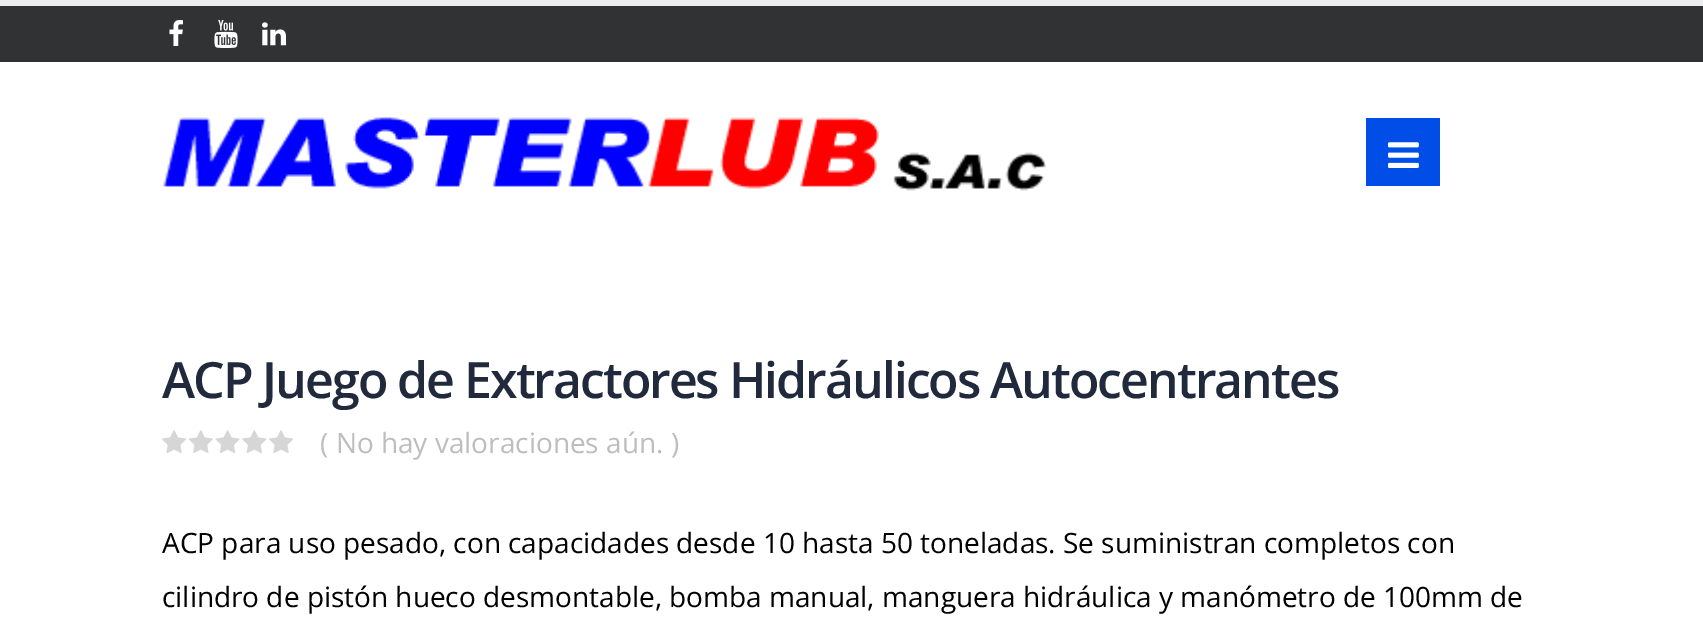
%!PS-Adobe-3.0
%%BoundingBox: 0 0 1703 626
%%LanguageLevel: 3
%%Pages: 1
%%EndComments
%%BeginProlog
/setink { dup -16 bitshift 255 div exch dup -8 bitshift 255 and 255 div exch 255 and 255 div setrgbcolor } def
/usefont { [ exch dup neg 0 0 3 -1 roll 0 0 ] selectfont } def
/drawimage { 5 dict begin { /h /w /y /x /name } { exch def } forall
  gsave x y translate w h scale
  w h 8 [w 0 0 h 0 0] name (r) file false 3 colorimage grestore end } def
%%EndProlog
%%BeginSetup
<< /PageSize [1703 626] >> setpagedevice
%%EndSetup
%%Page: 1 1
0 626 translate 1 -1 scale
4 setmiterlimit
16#FFFFFF setink
0 0 1703 626 rectfill
16#EDEDED setink
0 0 1703 6 rectfill
16#313234 setink
0 6 1703 56 rectfill
(img1.raw) 169 20 14 26 drawimage
(img2.raw) 214 20 24 28 drawimage
(img3.raw) 262 22 24 24 drawimage
(img4.raw) 163 117 883 74 drawimage
16#004DE8 setink
1366 118 74 68 rectfill
(img5.raw) 1388 142 31 26 drawimage
/OpenSans-SemiBold 50 usefont
16#21293C setink
162 398 moveto -2 0 (ACP Juego de Extractores Hidráulicos Autocentrantes) ashow
(img6.raw) 162 430 131 23 drawimage
/OpenSans-Regular 28 usefont
16#BDBDBD setink
320 453 moveto (\( No hay valoraciones aún. \)) show
16#000000 setink
162 553 moveto (ACP para uso pesado, con capacidades desde 10 hasta 50 toneladas. Se suministran completos con) show
162 607 moveto (cilindro de pistón hueco desmontable, bomba manual, manguera hidráulica y manómetro de 100mm de) show
showpage
%%EOF
